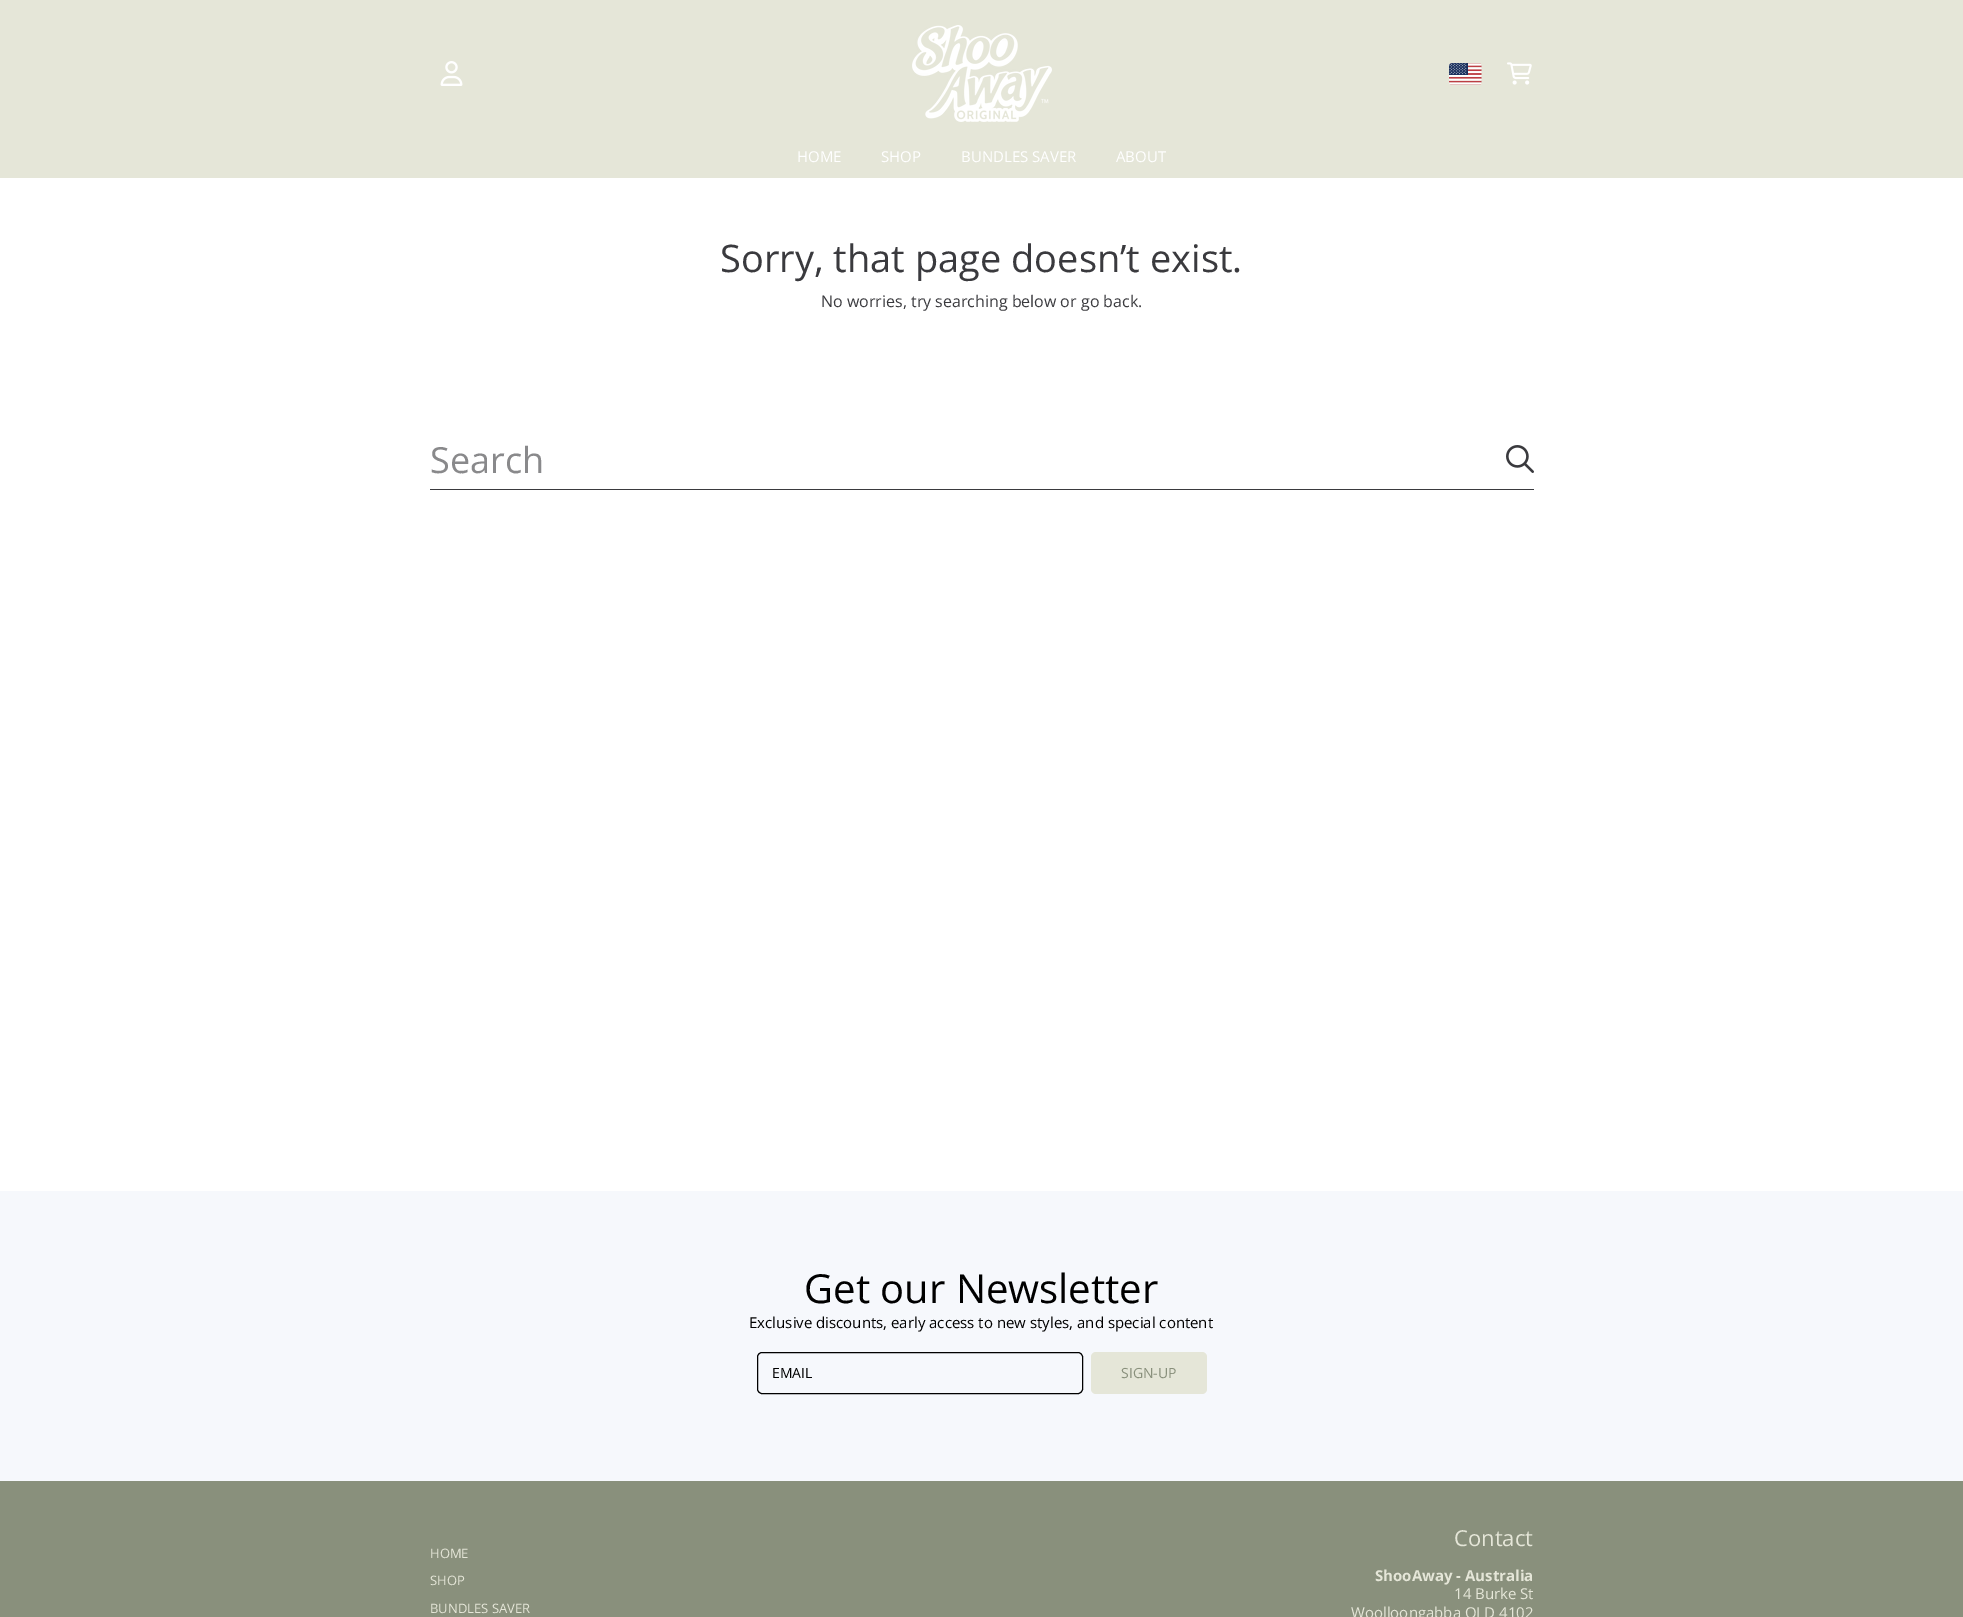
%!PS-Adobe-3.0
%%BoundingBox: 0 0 1963 1617
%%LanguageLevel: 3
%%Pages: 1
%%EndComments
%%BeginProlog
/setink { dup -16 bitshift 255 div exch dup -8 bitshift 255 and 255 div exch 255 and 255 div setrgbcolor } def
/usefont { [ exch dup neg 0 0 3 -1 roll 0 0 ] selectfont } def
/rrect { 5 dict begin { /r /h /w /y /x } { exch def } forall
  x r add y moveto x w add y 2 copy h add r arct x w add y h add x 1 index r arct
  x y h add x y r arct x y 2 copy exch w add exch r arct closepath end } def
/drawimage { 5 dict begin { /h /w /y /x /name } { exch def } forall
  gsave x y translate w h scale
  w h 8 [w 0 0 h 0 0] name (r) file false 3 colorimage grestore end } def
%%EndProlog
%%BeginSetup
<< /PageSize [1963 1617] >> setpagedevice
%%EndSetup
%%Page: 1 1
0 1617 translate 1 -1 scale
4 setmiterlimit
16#FFFFFF setink
0 0 1963 1617 rectfill
16#E5E6D8 setink
0 0 1963 178 rectfill
(img1.raw) 440 61 23 25 drawimage
(img2.raw) 912 25 140 97 drawimage
(img3.raw) 1449 63 33 22 drawimage
(img4.raw) 1507 62 25 23 drawimage
/OpenSans-Regular 15 usefont
16#FFFFFF setink
[
    [(HOME) 797 162]
    [(SHOP) 881 162]
    [(BUNDLES SAVER) 961 162]
    [(ABOUT) 1116 162]
] { aload pop moveto show } forall
/OpenSans-Regular 38 usefont
16#3A3A3E setink
720 272 moveto (Sorry, that page doesn’t exist.) show
/OpenSans-Regular 16 usefont
821 307 moveto (No worries, try searching below or go back.) show
430 489 1104 1 rectfill
/OpenSans-Regular 36 usefont
16#89898B setink
430 473 moveto (Search) show
(img5.raw) 1506 445 28 28 drawimage
16#F6F8FC setink
0 1191 1963 290 rectfill
/OpenSans-Regular 40 usefont
16#000000 setink
804 1303 moveto (Get our Newsletter) show
/OpenSans-Regular 15 usefont
749 1328 moveto (Exclusive discounts, early access to new styles, and special content) show
757.5 1352.5 325 41 4.5 rrect stroke
/OpenSans-Regular 14 usefont
772 1378 moveto (EMAIL) show
16#E5E6D8 setink
1091 1352 116 42 5 rrect fill
16#89907C setink
1121 1378 moveto (SIGN-UP) show
0 1481 1963 136 rectfill
/OpenSans-Regular 13 usefont
16#E5E6D8 setink
[
    [(HOME) 430 1558]
    [(SHOP) 430 1585]
    [(BUNDLES SAVER) 430 1613]
] { aload pop moveto show } forall
/OpenSans-Regular 22 usefont
1454 1546 moveto (Contact) show
/OpenSans-Bold 15 usefont
1375 1581 moveto (ShooAway - Australia) show
/OpenSans-Regular 15 usefont
1454 1599 moveto (14 Burke St) show
1351 1618 moveto (Woolloongabba QLD 4102) show
showpage
%%EOF
